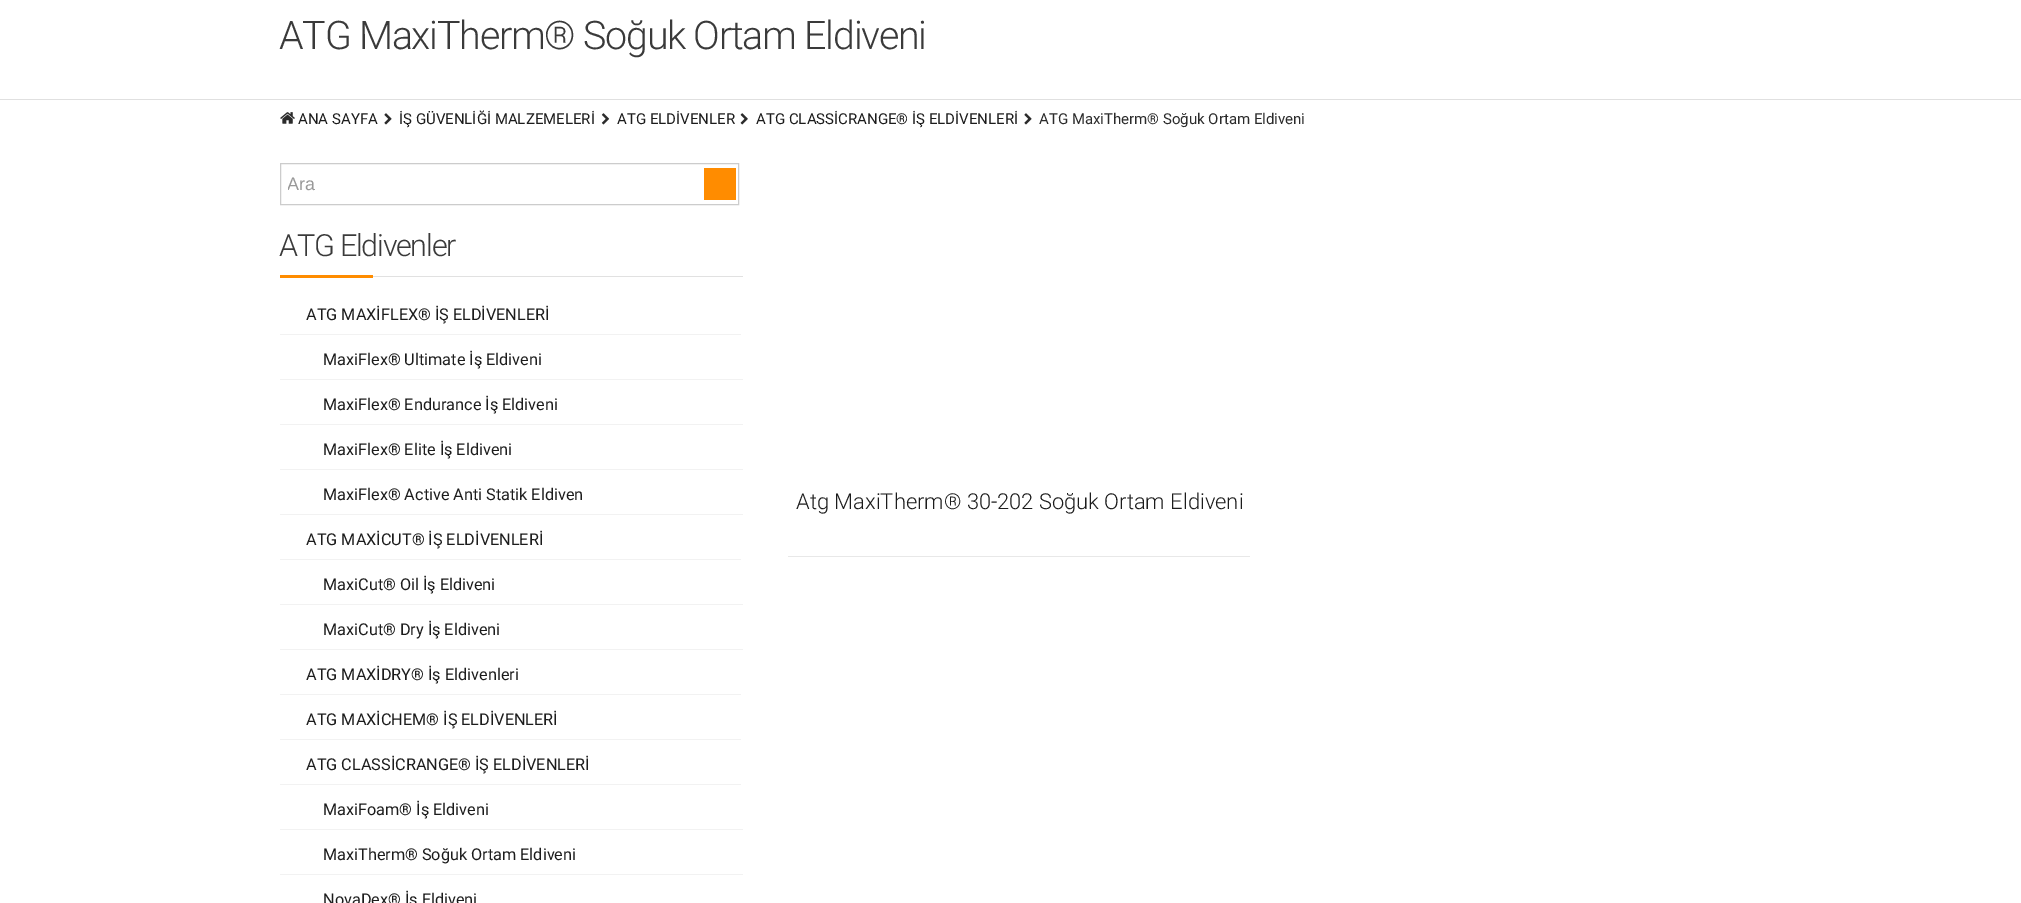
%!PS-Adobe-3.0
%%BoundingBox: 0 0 2021 903
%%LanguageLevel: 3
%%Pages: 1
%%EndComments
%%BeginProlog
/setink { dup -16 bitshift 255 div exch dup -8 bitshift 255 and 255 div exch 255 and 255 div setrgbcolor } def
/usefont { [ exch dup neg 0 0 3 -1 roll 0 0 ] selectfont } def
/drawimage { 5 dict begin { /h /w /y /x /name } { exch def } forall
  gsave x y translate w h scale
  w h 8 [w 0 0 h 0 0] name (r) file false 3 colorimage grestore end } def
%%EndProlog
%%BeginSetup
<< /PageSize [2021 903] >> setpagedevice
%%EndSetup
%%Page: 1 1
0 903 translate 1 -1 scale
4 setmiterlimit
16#FFFFFF setink
0 0 2021 903 rectfill
/Roboto-Light 39.4 usefont
16#3A3A3A setink
279 49 moveto -1.25 0 (ATG MaxiTherm® Soğuk Ortam Eldiveni) ashow
16#E0E0E0 setink
0 99 2021 1 rectfill
(img1.raw) 280 112 15 12 drawimage
/Roboto-Regular 15 usefont
16#1C1C1C setink
298 124 moveto (ANA SAYFA) show
(img2.raw) 384 113 8 12 drawimage
399 124 moveto (İŞ GÜVENLİĞİ MALZEMELERİ) show
(img3.raw) 601 113 9 12 drawimage
617 124 moveto (ATG ELDİVENLER) show
(img4.raw) 740 113 8 12 drawimage
756 124 moveto (ATG CLASSİCRANGE® İŞ ELDİVENLERİ) show
(img2.raw) 1024 113 8 12 drawimage
16#2B2B2B setink
1039 124 moveto (ATG MaxiTherm® Soğuk Ortam Eldiveni) show
16#CCCCCC setink
280.5 163.5 458 41 rectstroke
gsave
288 174 443 20 rectclip
/LiberationSans-Regular 18 usefont
16#999999 setink
287 190 moveto (Ara) show
grestore
16#FF8C00 setink
704 168 32 32 rectfill
/Roboto-Light 30.5 usefont
16#3A3A3A setink
279 256 moveto -1.25 0 (ATG Eldivenler) ashow
[
    [280 275 93 3 16#FF8C00]
    [373 276 370 1 16#E1E1E1]
    [280 334 461 1 16#F2F2F2]
] { aload pop setink rectfill } forall
/Roboto-Regular 16.25 usefont
16#1C1C1C setink
306 320 moveto (ATG MAXİFLEX® İŞ ELDİVENLERİ) show
16#F2F2F2 setink
280 379 463 1 rectfill
16#1C1C1C setink
323 365 moveto (MaxiFlex® Ultimate İş Eldiveni) show
16#F2F2F2 setink
280 424 463 1 rectfill
16#1C1C1C setink
323 410 moveto (MaxiFlex® Endurance İş Eldiveni) show
16#F2F2F2 setink
280 469 463 1 rectfill
16#1C1C1C setink
323 455 moveto (MaxiFlex® Elite İş Eldiveni) show
16#F2F2F2 setink
280 514 463 1 rectfill
16#1C1C1C setink
323 500 moveto (MaxiFlex® Active Anti Statik Eldiven) show
16#F2F2F2 setink
280 559 461 1 rectfill
16#1C1C1C setink
306 545 moveto (ATG MAXİCUT® İŞ ELDİVENLERİ) show
16#F2F2F2 setink
280 604 463 1 rectfill
16#1C1C1C setink
323 590 moveto (MaxiCut® Oil İş Eldiveni) show
16#F2F2F2 setink
280 649 463 1 rectfill
16#1C1C1C setink
323 635 moveto (MaxiCut® Dry İş Eldiveni) show
16#F2F2F2 setink
280 694 461 1 rectfill
16#1C1C1C setink
306 680 moveto (ATG MAXİDRY® İş Eldivenleri) show
16#F2F2F2 setink
280 739 461 1 rectfill
16#1C1C1C setink
306 725 moveto (ATG MAXİCHEM® İŞ ELDİVENLERİ) show
16#F2F2F2 setink
280 784 461 1 rectfill
16#1C1C1C setink
306 770 moveto (ATG CLASSİCRANGE® İŞ ELDİVENLERİ) show
16#F2F2F2 setink
280 829 463 1 rectfill
16#1C1C1C setink
323 815 moveto (MaxiFoam® İş Eldiveni) show
16#F2F2F2 setink
280 874 463 1 rectfill
16#1C1C1C setink
323 860 moveto (MaxiTherm® Soğuk Ortam Eldiveni) show
323 905 moveto (NovaDex® İş Eldiveni) show
16#E8E8E8 setink
788 556 462 1 rectfill
/Roboto-Light 21.9 usefont
16#1C1C1C setink
796 509 moveto (Atg MaxiTherm® 30-202 Soğuk Ortam Eldiveni) show
showpage
%%EOF
